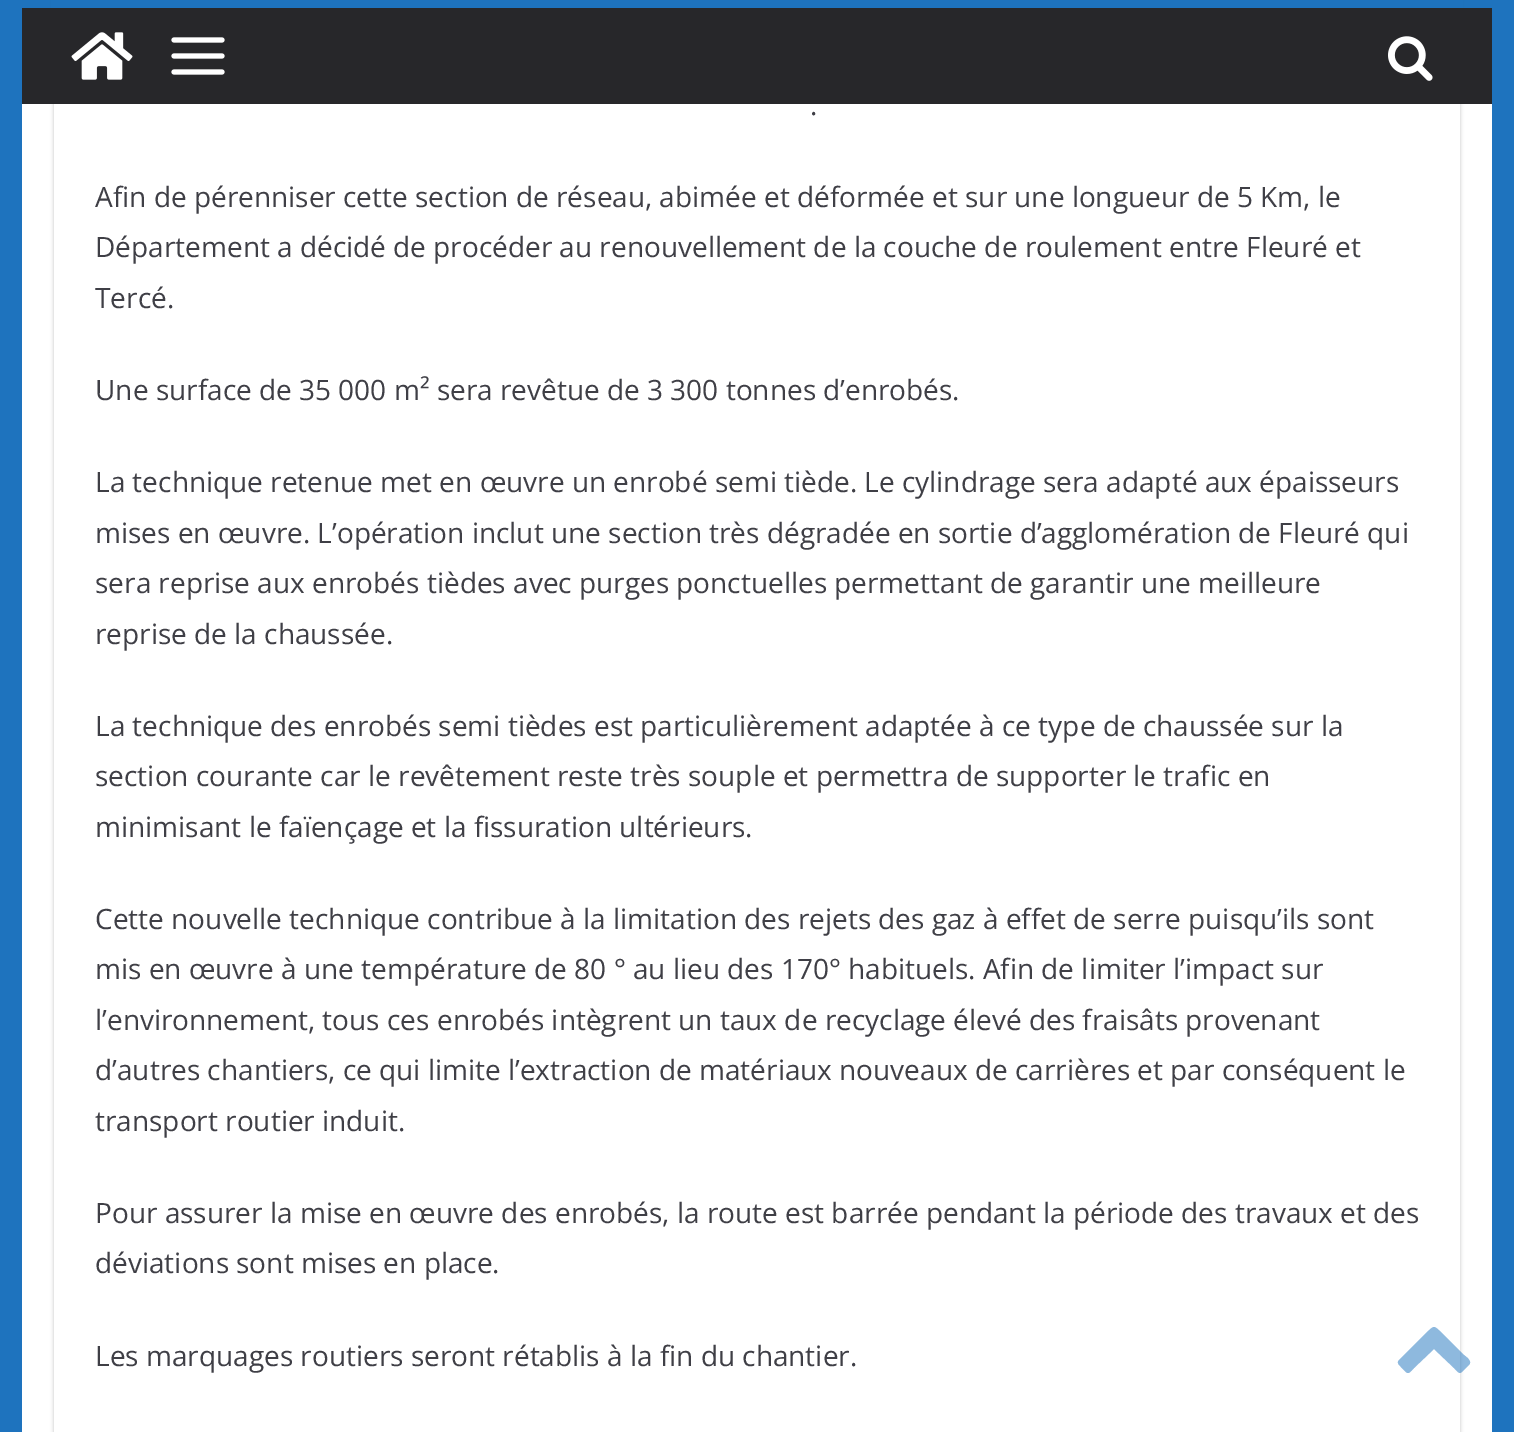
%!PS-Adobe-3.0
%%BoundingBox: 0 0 1514 1432
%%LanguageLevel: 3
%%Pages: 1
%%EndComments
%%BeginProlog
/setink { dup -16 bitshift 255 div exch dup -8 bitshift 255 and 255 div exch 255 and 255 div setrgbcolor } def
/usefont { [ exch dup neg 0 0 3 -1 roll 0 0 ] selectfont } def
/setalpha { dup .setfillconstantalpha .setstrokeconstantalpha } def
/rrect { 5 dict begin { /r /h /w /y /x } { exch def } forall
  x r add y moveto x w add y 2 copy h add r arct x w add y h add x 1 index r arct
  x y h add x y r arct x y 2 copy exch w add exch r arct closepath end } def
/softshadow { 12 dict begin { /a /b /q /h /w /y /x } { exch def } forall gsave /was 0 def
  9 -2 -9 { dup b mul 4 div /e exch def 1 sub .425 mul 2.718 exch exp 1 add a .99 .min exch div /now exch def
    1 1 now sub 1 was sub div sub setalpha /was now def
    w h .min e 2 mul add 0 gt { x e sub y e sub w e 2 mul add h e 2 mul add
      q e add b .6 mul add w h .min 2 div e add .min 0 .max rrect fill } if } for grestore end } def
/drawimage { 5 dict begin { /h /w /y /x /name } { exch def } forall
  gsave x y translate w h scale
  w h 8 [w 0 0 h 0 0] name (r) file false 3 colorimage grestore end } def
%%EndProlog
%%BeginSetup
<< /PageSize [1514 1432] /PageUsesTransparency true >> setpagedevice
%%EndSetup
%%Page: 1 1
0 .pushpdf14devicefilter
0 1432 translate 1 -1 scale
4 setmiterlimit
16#1E73BE setink
0 0 1514 1432 rectfill
16#FFFFFF setink
22 104 1470 1328 rectfill
gsave
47 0 moveto 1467 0 lineto 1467 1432 lineto 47 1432 lineto closepath 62 -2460 moveto 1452 -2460 lineto 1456.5 -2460 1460 -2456.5 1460 -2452 curveto 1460 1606 lineto 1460 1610.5 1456.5 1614 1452 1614 curveto 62 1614 lineto 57.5 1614 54 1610.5 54 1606 curveto 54 -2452 lineto 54 -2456.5 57.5 -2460 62 -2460 curveto closepath eoclip newpath
16#000000 setink
54 -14 1406 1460 8 2 0.24 softshadow
grestore
16#27272A setink
22 8 1470 96 rectfill
16#1E73BE setink
51 0 1412 8 rectfill
(img1.raw) 71 32 62 48 drawimage
(img2.raw) 171 37 54 38 drawimage
(img3.raw) 1388 36 45 45 drawimage
/OpenSans-Regular 28 usefont
16#3F3F46 setink
[
    [(.) 810 115]
    [(Afin de pérenniser cette section de réseau, abimée et déformée et sur une longueur de 5 Km, le) 95 207]
    [(Département a décidé de procéder au renouvellement de la couche de roulement entre Fleuré et) 95 257]
    [(Tercé.) 95 308]
    [(Une surface de 35 000 m² sera revêtue de 3 300 tonnes d’enrobés.) 95 400]
    [(La technique retenue met en œuvre un enrobé semi tiède. Le cylindrage sera adapté aux épaisseurs) 95 492]
    [(mises en œuvre. L’opération inclut une section très dégradée en sortie d’agglomération de Fleuré qui) 95 543]
    [(sera reprise aux enrobés tièdes avec purges ponctuelles permettant de garantir une meilleure) 95 593]
    [(reprise de la chaussée.) 95 644]
    [(La technique des enrobés semi tièdes est particulièrement adaptée à ce type de chaussée sur la) 95 736]
    [(section courante car le revêtement reste très souple et permettra de supporter le trafic en) 95 786]
    [(minimisant le faïençage et la fissuration ultérieurs.) 95 837]
    [(Cette nouvelle technique contribue à la limitation des rejets des gaz à effet de serre puisqu’ils sont) 95 929]
    [(mis en œuvre à une température de 80 ° au lieu des 170° habituels. Afin de limiter l’impact sur) 95 979]
    [(l’environnement, tous ces enrobés intègrent un taux de recyclage élevé des fraisâts provenant) 95 1030]
    [(d’autres chantiers, ce qui limite l’extraction de matériaux nouveaux de carrières et par conséquent le) 95 1080]
    [(transport routier induit.) 95 1131]
    [(Pour assurer la mise en œuvre des enrobés, la route est barrée pendant la période des travaux et des) 95 1223]
    [(déviations sont mises en place.) 95 1273]
    [(Les marquages routiers seront rétablis à la fin du chantier.) 95 1366]
] { aload pop moveto show } forall
0.5 setalpha
16#1E73BE setink
1469 1365 moveto 1463 1371 lineto 1459 1375 1458 1372 1454 1368 curveto 1434 1349 lineto 1414 1368 lineto 1407 1376 1408 1374 1400 1366 curveto 1395 1361 1400 1360 1404 1355 curveto 1426 1333 lineto 1435 1325 1433 1325 1442 1333 curveto 1464 1355 lineto 1465 1356 1473 1361 1469 1365 curveto closepath fill
.poppdf14devicefilter showpage
%%EOF
